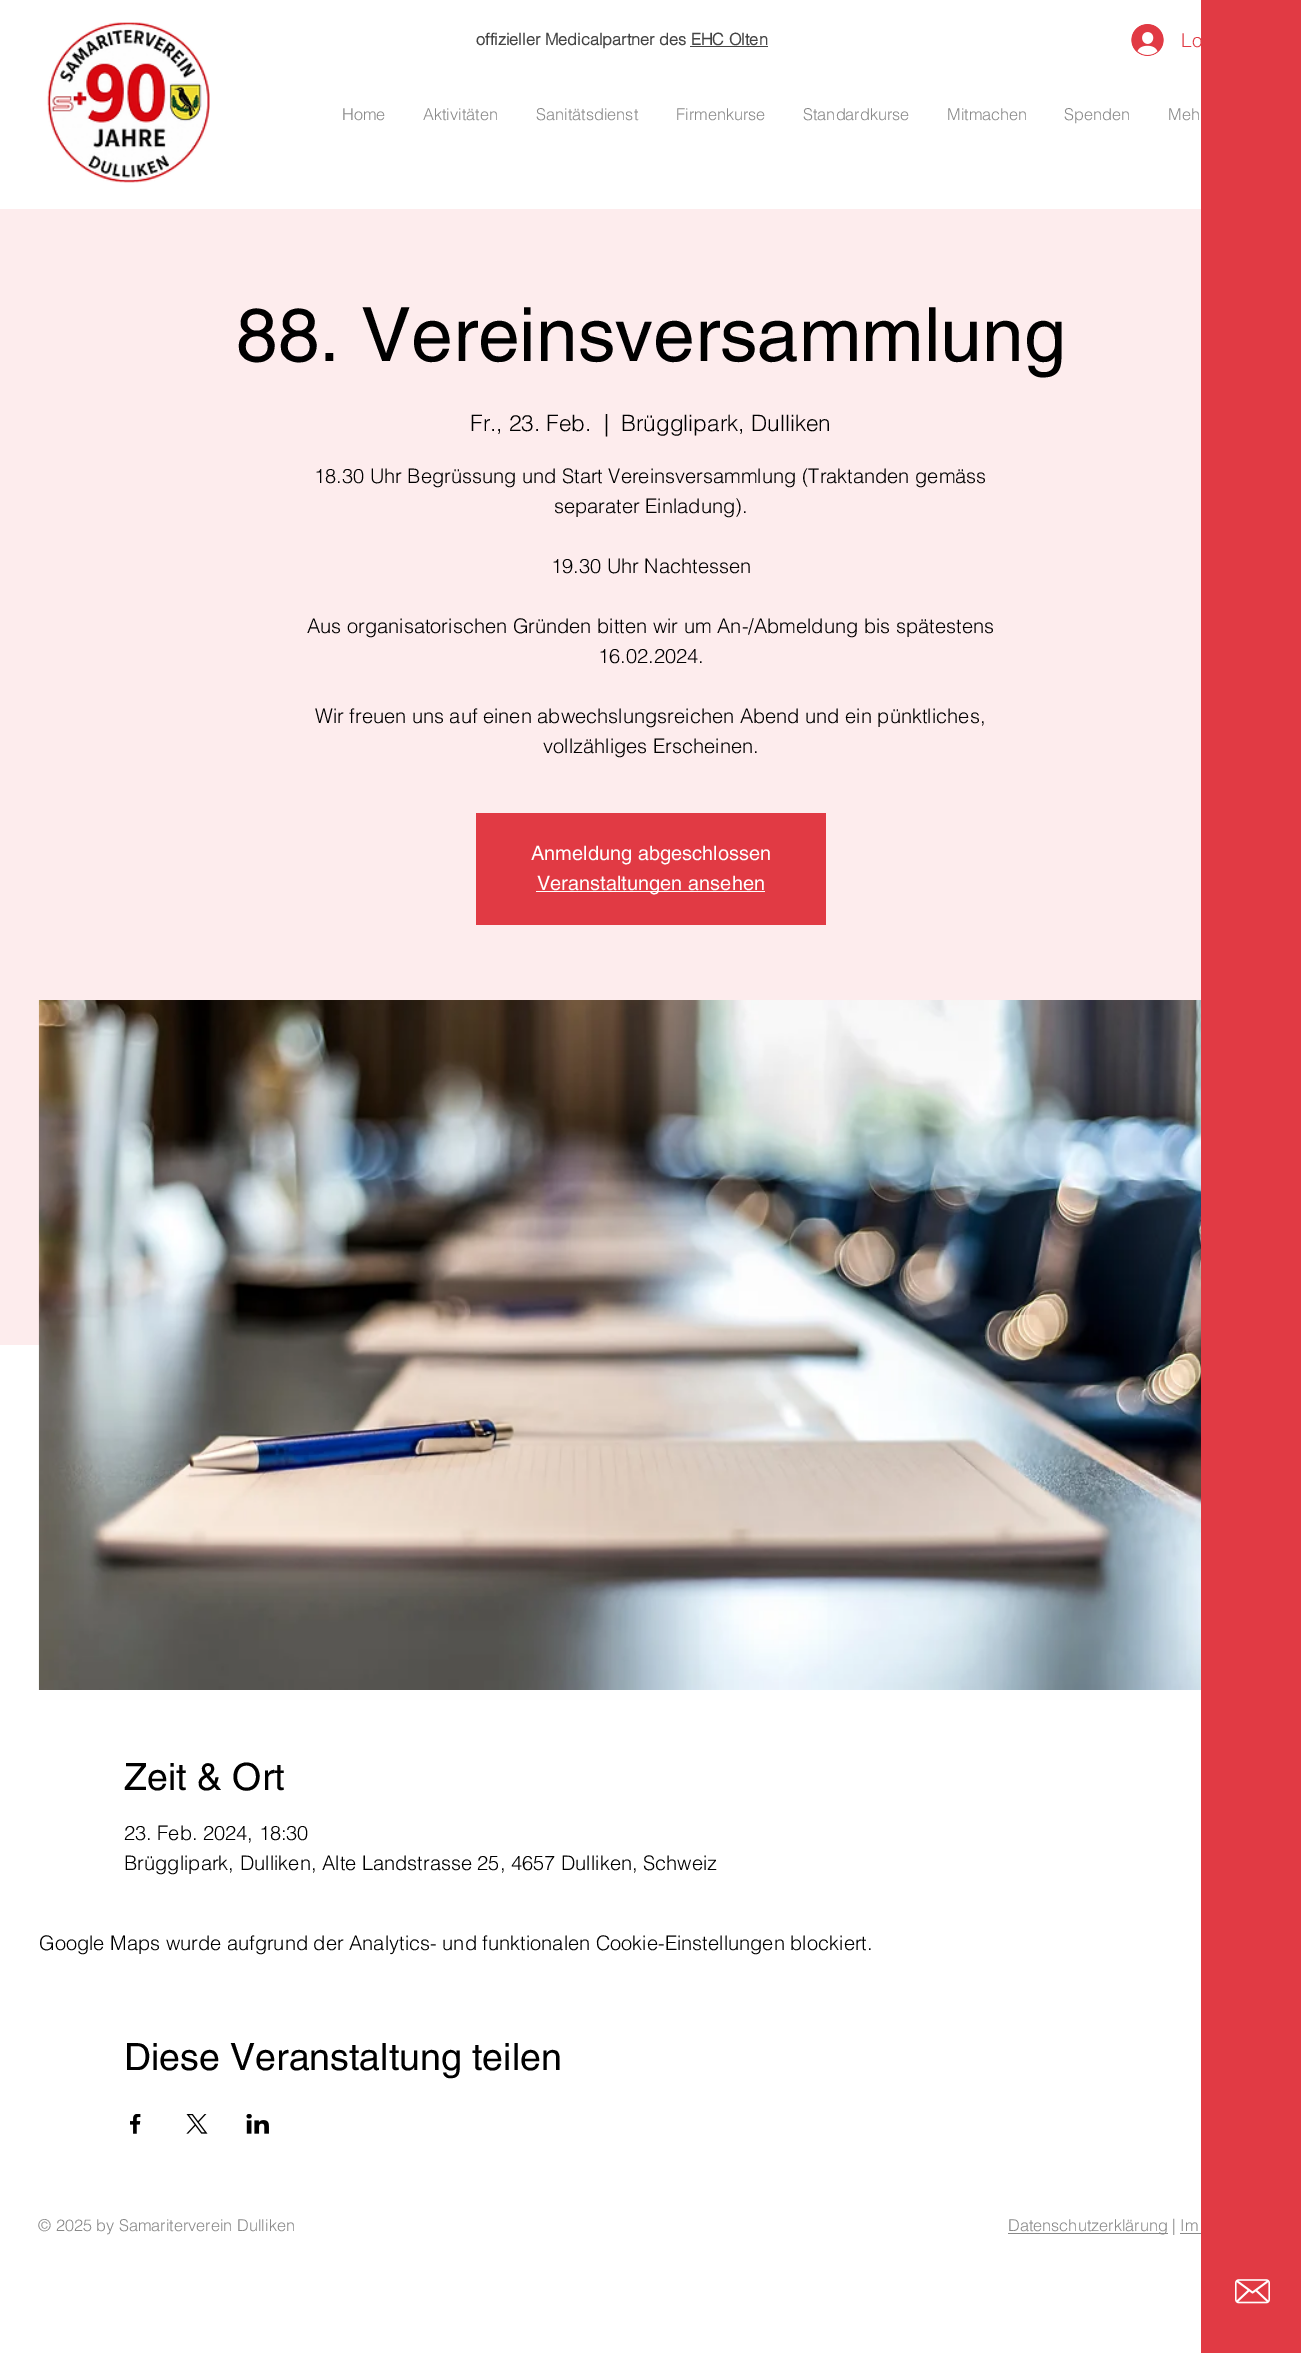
%!PS-Adobe-3.0
%%BoundingBox: 0 0 1301 2353
%%LanguageLevel: 3
%%Pages: 1
%%EndComments
%%BeginProlog
/setink { dup -16 bitshift 255 div exch dup -8 bitshift 255 and 255 div exch 255 and 255 div setrgbcolor } def
/usefont { [ exch dup neg 0 0 3 -1 roll 0 0 ] selectfont } def
/drawimage { 5 dict begin { /h /w /y /x /name } { exch def } forall
  gsave x y translate w h scale
  w h 8 [w 0 0 h 0 0] name (r) file false 3 colorimage grestore end } def
%%EndProlog
%%BeginSetup
<< /PageSize [1301 2353] >> setpagedevice
%%EndSetup
%%Page: 1 1
0 2353 translate 1 -1 scale
4 setmiterlimit
16#FFFFFF setink
0 0 1301 2353 rectfill
(img1.raw) 47 22 163 161 drawimage
/helvetica-Bold 16.25 usefont
16#444444 setink
476 45 moveto (offizieller Medicalpartner des EHC Olten) show
690 46 78 1 rectfill
(img2.raw) 1131 24 33 32 drawimage
/helvetica-Light 19 usefont
16#E13A44 setink
1181 47 moveto (Lo) show
/helvetica-Light 16.25 usefont
16#888888 setink
[
    [(Home) 342 120]
    [(Aktivitäten) 423 120]
    [(Sanitätsdienst) 536 120]
    [(Firmenkurse) 676 120]
    [(Standardkurse) 803 120]
    [(Mitmachen) 947 120]
    [(Spenden) 1064 120]
    [(Meh) 1168 120]
] { aload pop moveto show } forall
16#E13A44 setink
1201 0 100 2353 rectfill
16#FDECED setink
0 209 1201 1136 rectfill
/helvetica-Regular 75 usefont
16#000000 setink
236 361 moveto (88. Vereinsversammlung) show
/helvetica-Light 22.5 usefont
[
    [(Fr., 23. Feb.) 470 431]
    [(|) 604 431]
    [(Brügglipark, Dulliken) 621 431]
] { aload pop moveto show } forall
/helvetica-Light 20 usefont
[
    [(18.30 Uhr Begrüssung und Start Vereinsversammlung \(Traktanden gemäss) 314 483]
    [(separater Einladung\).) 554 513]
    [(19.30 Uhr Nachtessen) 551 573]
    [(Aus organisatorischen Gründen bitten wir um An-/Abmeldung bis spätestens) 307 633]
    [(16.02.2024.) 598 663]
    [(Wir freuen uns auf einen abwechslungsreichen Abend und ein pünktliches,) 315 723]
    [(vollzähliges Erscheinen.) 543 753]
] { aload pop moveto show } forall
16#E13A44 setink
476 813 350 112 rectfill
/helvetica-Regular 20 usefont
16#FFFFFF setink
531 860 moveto (Anmeldung abgeschlossen) show
536 891 229 1 rectfill
537 890 moveto (Veranstaltungen ansehen) show
(img3.raw) 38 1000 1163 690 drawimage
/helvetica-Regular 37.5 usefont
16#000000 setink
124 1790 moveto (Zeit & Ort) show
/helvetica-Light 20 usefont
[
    [(23. Feb. 2024, 18:30) 124 1840]
    [(Brügglipark, Dulliken, Alte Landstrasse 25, 4657 Dulliken, Schweiz) 124 1870]
    [(Google Maps wurde aufgrund der Analytics- und funktionalen Cookie-Einstellungen blockiert.) 39 1950]
] { aload pop moveto show } forall
/helvetica-Regular 37.5 usefont
124 2070 moveto (Diese Veranstaltung teilen) show
(img4.raw) 130 2114 11 20 drawimage
(img5.raw) 186 2114 22 20 drawimage
(img6.raw) 246 2114 23 20 drawimage
/helvetica-Light 16.25 usefont
16#888888 setink
38 2231 moveto (© 2025 by Samariterverein Dulliken) show
1008 2233 160 1 rectfill
1008 2231 moveto (Datenschutzerklärung | Im) show
1180 2233 21 1 rectfill
(img7.raw) 1235 2279 35 25 drawimage
showpage
%%EOF
